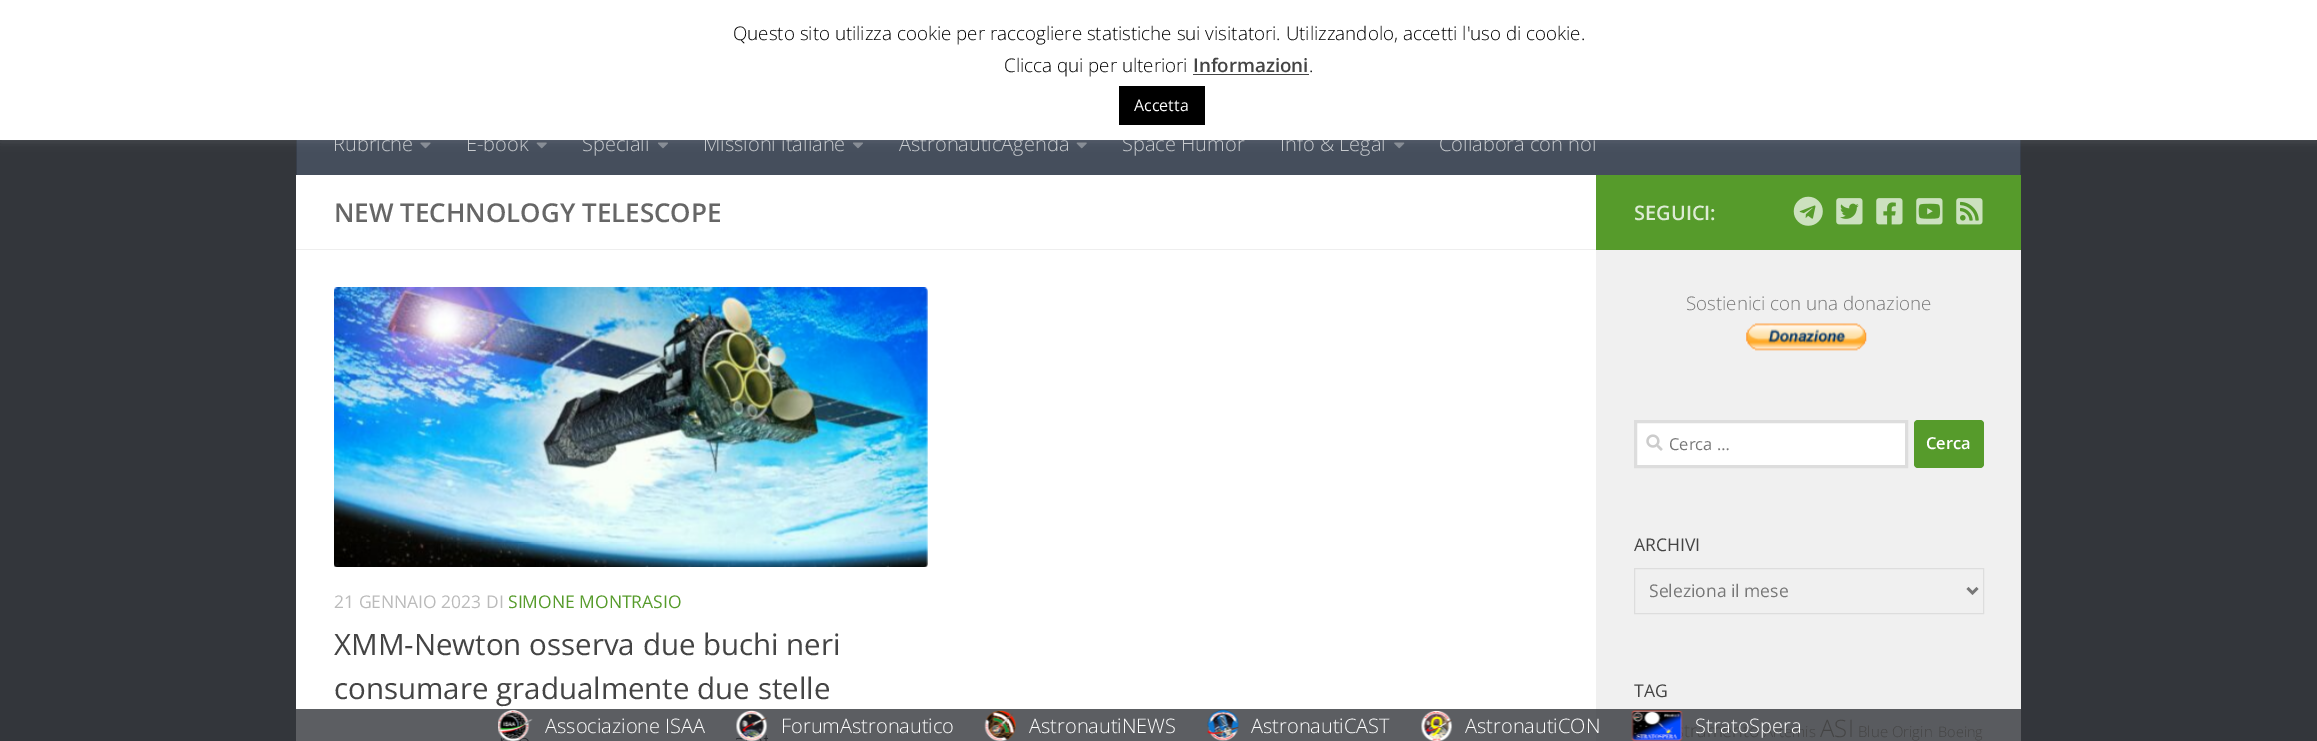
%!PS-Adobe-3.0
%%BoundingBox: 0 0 2317 741
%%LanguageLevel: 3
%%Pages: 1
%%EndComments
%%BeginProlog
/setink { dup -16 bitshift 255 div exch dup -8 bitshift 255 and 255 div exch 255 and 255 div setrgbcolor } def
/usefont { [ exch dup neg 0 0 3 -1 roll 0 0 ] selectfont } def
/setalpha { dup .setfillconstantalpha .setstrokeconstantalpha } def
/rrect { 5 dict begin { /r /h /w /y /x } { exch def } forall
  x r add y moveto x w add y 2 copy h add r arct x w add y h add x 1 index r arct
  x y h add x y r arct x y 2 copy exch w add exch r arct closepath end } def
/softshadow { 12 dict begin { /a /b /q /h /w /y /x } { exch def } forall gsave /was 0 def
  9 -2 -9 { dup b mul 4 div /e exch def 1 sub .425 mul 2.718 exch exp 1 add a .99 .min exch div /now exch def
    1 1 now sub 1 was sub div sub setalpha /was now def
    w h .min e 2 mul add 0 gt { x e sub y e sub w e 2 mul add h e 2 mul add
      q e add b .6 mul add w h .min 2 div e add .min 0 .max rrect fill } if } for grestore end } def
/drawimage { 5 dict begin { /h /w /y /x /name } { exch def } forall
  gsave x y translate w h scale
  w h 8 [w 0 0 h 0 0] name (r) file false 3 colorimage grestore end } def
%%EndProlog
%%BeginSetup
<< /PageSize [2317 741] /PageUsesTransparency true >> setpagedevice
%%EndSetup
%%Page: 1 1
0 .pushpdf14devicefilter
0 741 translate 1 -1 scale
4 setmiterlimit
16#33363B setink
0 0 2317 741 rectfill
[
    [297 140 1723 35 16#454E5C]
    [2020 140 1 35 16#373E4A]
    [296 140 1 35 16#373E4A]
] { aload pop setink rectfill } forall
(img1.raw) 420 142 11 7 drawimage
(img2.raw) 536 142 11 7 drawimage
(img3.raw) 658 142 10 7 drawimage
(img3.raw) 853 142 10 7 drawimage
(img2.raw) 1076 142 11 7 drawimage
(img4.raw) 1394 142 11 7 drawimage
16#ACABAB setink
0 -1 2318 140 0 6 0.3 softshadow
/OpenSans-Light 20 usefont
16#C7CACE setink
[
    [(Rubriche) 333 151]
    [(E-book) 466 151]
    [(Speciali) 582 151]
    [(Missioni italiane) 703 151]
    [(AstronauticAgenda) 899 151]
    [(Space Humor) 1122 151]
    [(Info & Legal) 1280 151]
    [(Collabora con noi) 1439 151]
] { aload pop moveto show } forall
16#FFFFFF setink
0 0 2317 140 rectfill
/OpenSans-Light 18.75 usefont
16#000000 setink
733 40 moveto (Questo sito utilizza cookie per raccogliere statistiche sui visitatori. Utilizzandolo, accetti l'uso di cookie.) show
1004 72 moveto (Clicca qui per ulteriori) show
/OpenSans-SemiBold 18.75 usefont
16#444444 setink
1193 72 moveto (Informazioni) show
1193 74 116 1 rectfill
/OpenSans-Light 18.75 usefont
16#000000 setink
1309 72 moveto (.) show
1119 86 86 39 rectfill
/OpenSans-Regular 16 usefont
16#FFFFFF setink
1134 111 moveto (Accetta) show
[
    [296 175 1300 534 16#FFFFFF]
    [296 709 1300 32 16#5C5E62]
    [296 249 1300 1 16#EEEEEE]
] { aload pop setink rectfill } forall
/OpenSans-SemiBold 26 usefont
16#666666 setink
334 222 moveto (NEW TECHNOLOGY TELESCOPE) show
(img5.raw) 334 287 594 280 drawimage
/OpenSans-Regular 17.5 usefont
16#BBBBBB setink
334 608 moveto (21 GENNAIO 2023 DI) show
16#569B2B setink
508 608 moveto (SIMONE MONTRASIO) show
/OpenSans-Regular 29.5 usefont
16#444444 setink
334 655 moveto (XMM-Newton osserva due buchi neri) show
334 699 moveto (consumare gradualmente due stelle) show
16#569B2B setink
1596 175 425 75 rectfill
/OpenSans-SemiBold 20 usefont
16#DDEBD5 setink
1634 220 moveto (SEGUICI:) show
(img6.raw) 1793 196 30 30 drawimage
(img7.raw) 1836 198 27 27 drawimage
(img8.raw) 1876 198 27 27 drawimage
(img9.raw) 1916 198 27 27 drawimage
(img10.raw) 1956 198 27 27 drawimage
16#F0F0F0 setink
1596 250 425 459 rectfill
/OpenSans-Light 18.75 usefont
16#777777 setink
1686 310 moveto (Sostienici con una donazione) show
(img11.raw) 1746 323 121 28 drawimage
16#FFFFFF setink
1635.5 421.5 moveto 1906.5 421.5 lineto 1906.5 466.5 lineto 1635.5 466.5 lineto closepath gsave fill grestore
16#DDDDDD setink
3 setlinewidth
stroke
(img12.raw) 1646 434 17 17 drawimage
/OpenSans-Regular 16.5 usefont
16#777777 setink
1669 450 moveto (Cerca …) show
16#569B2B setink
1914 420 70 48 4 rrect fill
/OpenSans-SemiBold 16.5 usefont
16#FFFFFF setink
1926 449 moveto (Cerca) show
/OpenSans-Regular 17.5 usefont
16#444444 setink
1634 551 moveto (ARCHIVI) show
16#DDDDDD setink
1 setlinewidth
1634.5 568.5 349 45 rectstroke
16#777777 setink
2.5 setlinewidth
1967.5 588 moveto 1972.5 593 lineto 1977.5 588 lineto stroke
1649 597 moveto (Seleziona il mese) show
16#444444 setink
1634 697 moveto (TAG) show
16#595B5F setink
1596 709 425 32 rectfill
/OpenSans-Light 18 usefont
16#444444 setink
1684 737 moveto (tramento) show
/OpenSans-Light 15 usefont
1764 737 moveto (Artemis) show
/OpenSans-Light 24 usefont
1820 737 moveto (ASI) show
/OpenSans-Light 15 usefont
1858 737 moveto (Blue Origin) show
/OpenSans-Light 14.5 usefont
1938 737 moveto (Boeing) show
(img13.raw) 498 710 35 31 drawimage
/OpenSans-Light 20 usefont
16#FFFFFF setink
545 733 moveto (Associazione ISAA) show
(img14.raw) 736 710 32 31 drawimage
781 733 moveto (ForumAstronautico) show
(img15.raw) 984 710 32 31 drawimage
1029 733 moveto (AstronautiNEWS) show
(img16.raw) 1207 710 32 31 drawimage
1251 733 moveto (AstronautiCAST) show
(img17.raw) 1421 710 32 31 drawimage
1465 733 moveto (AstronautiCON) show
(img18.raw) 1631 710 52 31 drawimage
1695 733 moveto (StratoSpera) show
.poppdf14devicefilter showpage
%%EOF
